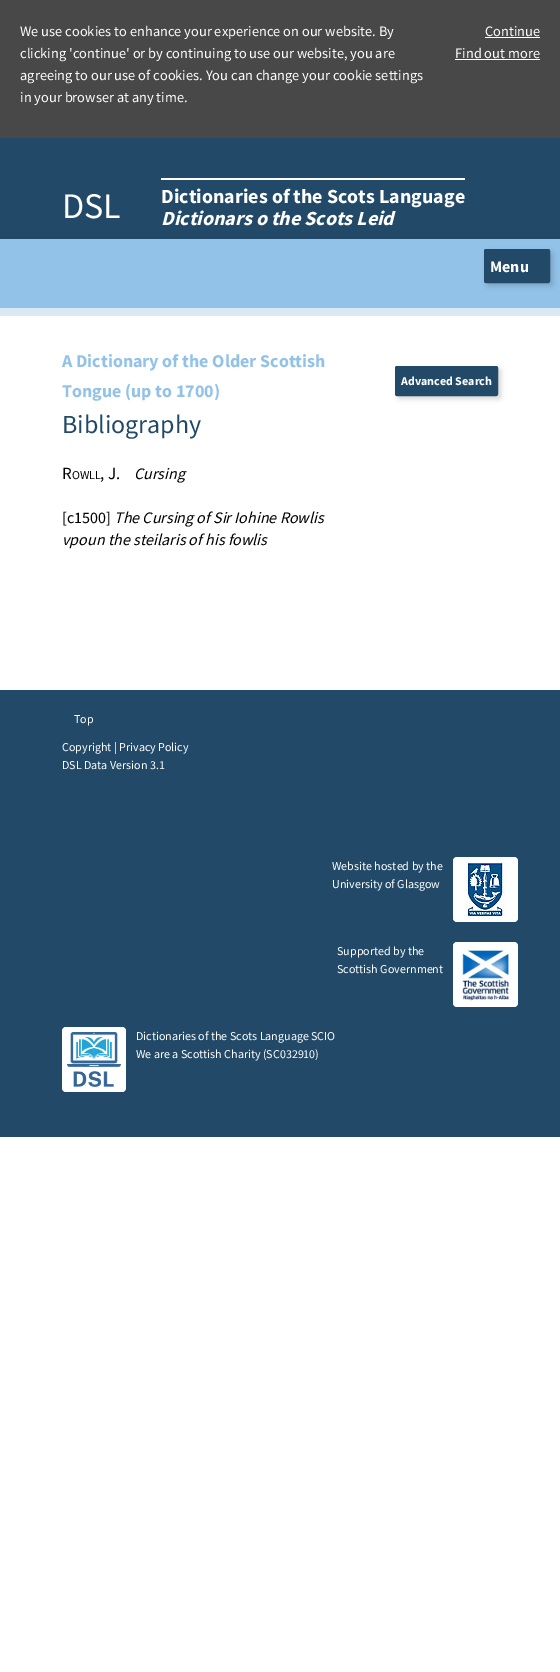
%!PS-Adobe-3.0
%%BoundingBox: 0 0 560 1672
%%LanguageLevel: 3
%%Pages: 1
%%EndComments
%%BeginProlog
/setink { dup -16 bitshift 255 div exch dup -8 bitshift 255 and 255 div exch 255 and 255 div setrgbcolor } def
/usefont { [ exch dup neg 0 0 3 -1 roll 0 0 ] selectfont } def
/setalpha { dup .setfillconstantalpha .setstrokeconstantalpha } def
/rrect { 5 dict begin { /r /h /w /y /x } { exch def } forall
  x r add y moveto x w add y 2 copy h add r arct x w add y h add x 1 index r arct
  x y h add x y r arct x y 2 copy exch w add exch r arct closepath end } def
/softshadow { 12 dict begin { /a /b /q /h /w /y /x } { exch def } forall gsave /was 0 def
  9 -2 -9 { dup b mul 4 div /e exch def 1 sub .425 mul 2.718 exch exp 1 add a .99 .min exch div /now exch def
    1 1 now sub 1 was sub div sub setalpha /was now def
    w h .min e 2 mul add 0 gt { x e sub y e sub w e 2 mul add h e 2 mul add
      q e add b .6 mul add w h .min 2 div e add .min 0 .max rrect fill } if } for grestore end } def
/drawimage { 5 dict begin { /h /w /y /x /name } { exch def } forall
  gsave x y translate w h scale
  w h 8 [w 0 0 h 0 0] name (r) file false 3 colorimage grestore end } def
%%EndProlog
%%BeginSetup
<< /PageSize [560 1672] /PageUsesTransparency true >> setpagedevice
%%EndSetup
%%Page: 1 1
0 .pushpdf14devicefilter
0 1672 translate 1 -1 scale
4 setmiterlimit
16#FFFFFF setink
0 0 560 1672 rectfill
16#484848 setink
0 0 560 138 rectfill
/SourceSansPro-Regular 14.4 usefont
16#FFFFFF setink
[
    [(We use cookies to enhance your experience on our website. By) 20 36]
    [(clicking 'continue' or by continuing to use our website, you are) 20 58]
    [(agreeing to our use of cookies. You can change your cookie settings) 20 80]
    [(in your browser at any time.) 20 102]
    [(Continue) 485 36]
] { aload pop moveto show } forall
485 37 55 1 rectfill
455 58 moveto (Find out more) show
455 59 85 1 rectfill
16#224A68 setink
0 138 560 101 rectfill
/SourceSansPro-Regular 36 usefont
16#FFFFFF setink
62 218 moveto (DSL) show
161 178 304 2 rectfill
/SourceSansPro-Bold 20 usefont
161 203 moveto (Dictionaries of the Scots Language) show
/SourceSansPro-BoldItalic 20 usefont
161 225 moveto (Dictionars o the Scots Leid) show
16#92C2E8 setink
0 239 560 69 rectfill
16#DCE9F3 setink
0 308 560 8 rectfill
16#000000 setink
487 252 66 34 2 2.5 0.15 softshadow
16#224A68 setink
484.5 249.5 65 33 1.5 rrect gsave fill grestore
stroke
/SourceSansPro-Bold 16 usefont
16#FFFFFF setink
490 272 moveto (Menu) show
/SourceSansPro-Bold 18 usefont
16#92C2E8 setink
62 367 moveto (A Dictionary of the Older Scottish) show
62 397 moveto (Tongue \(up to 1700\)) show
/SourceSansPro-Regular 26 usefont
16#224A68 setink
62 433 moveto (Bibliography) show
/SourceSansPro-Regular 17 usefont
16#000000 setink
62 479 moveto (R) show
/SourceSansPro-Regular 12 usefont
72 479 moveto (OWLL) show
/SourceSansPro-Regular 17 usefont
100 479 moveto (, J.) show
/SourceSansPro-Italic 16 usefont
134 479 moveto (Cursing) show
/SourceSansPro-Regular 16 usefont
62 523 moveto ([c1500]) show
/SourceSansPro-Italic 16 usefont
114 523 moveto (The Cursing of Sir Iohine Rowlis) show
62 545 moveto (vpoun the steilaris of his fowlis) show
398 369 103 30 2 2.5 0.15 softshadow
16#224A68 setink
395.5 366.5 102 29 1.5 rrect gsave fill grestore
stroke
/SourceSansPro-Bold 12 usefont
16#FFFFFF setink
401 385 moveto (Advanced Search) show
16#224A68 setink
0 690 560 447 rectfill
/SourceSansPro-Regular 12 usefont
16#FFFFFF setink
[
    [(Top) 74 723]
    [(Copyright | Privacy Policy) 62 751]
    [(DSL Data Version 3.1) 62 769]
    [(Website hosted by the) 332 870]
    [(University of Glasgow) 332 888]
] { aload pop moveto show } forall
453 857 65 65 4 rrect fill
(img1.raw) 466 862 40 55 drawimage
337 955 moveto (Supported by the) show
337 973 moveto (Scottish Government) show
453 942 65 65 4 rrect fill
(img2.raw) 461 949 49 52 drawimage
62 1027 64 65 4 rrect fill
(img3.raw) 67 1032 54 55 drawimage
136 1040 moveto (Dictionaries of the Scots Language SCIO) show
136 1058 moveto (We are a Scottish Charity \(SC032910\)) show
.poppdf14devicefilter showpage
%%EOF
